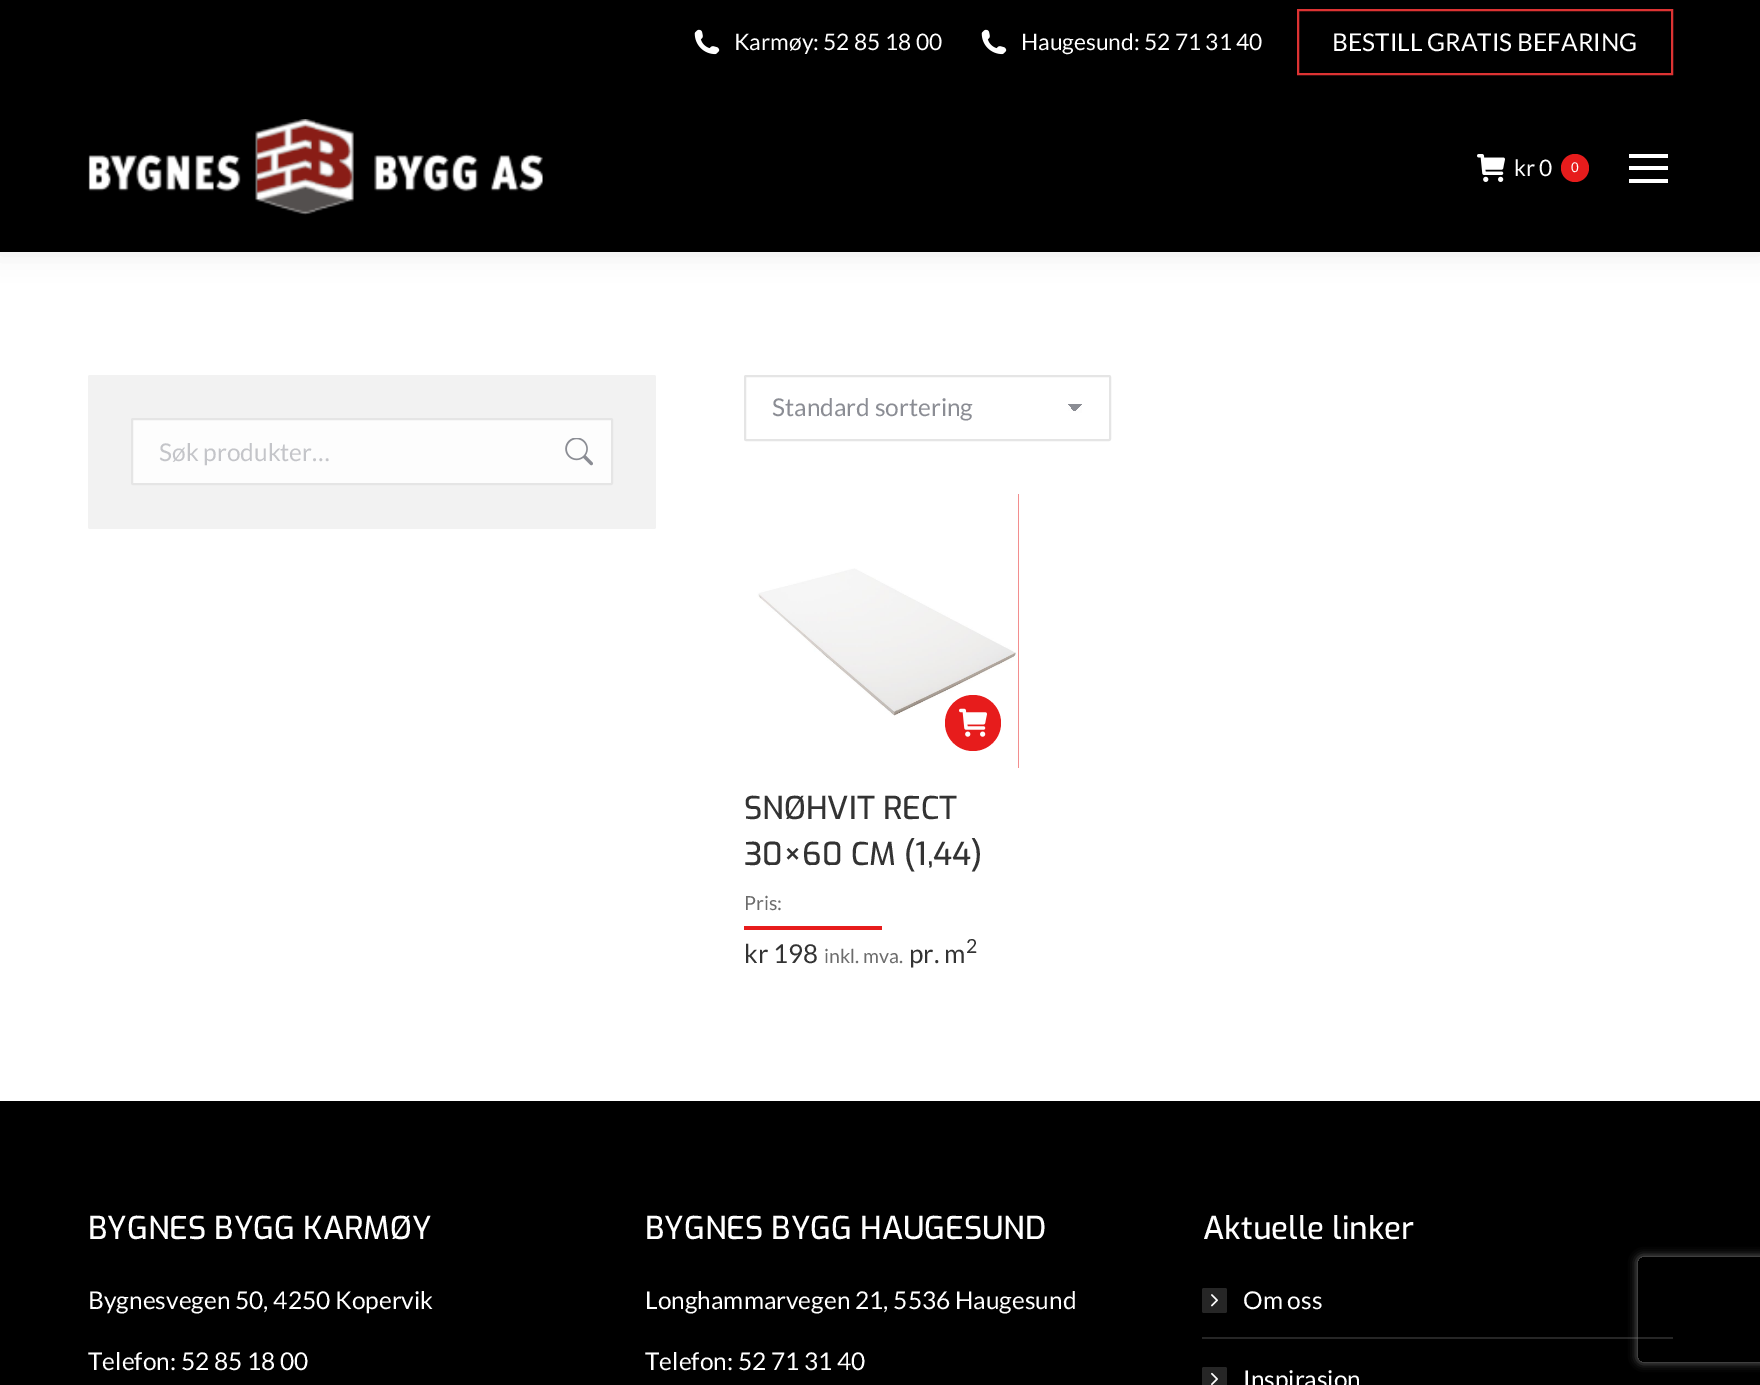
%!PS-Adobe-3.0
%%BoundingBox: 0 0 1760 1385
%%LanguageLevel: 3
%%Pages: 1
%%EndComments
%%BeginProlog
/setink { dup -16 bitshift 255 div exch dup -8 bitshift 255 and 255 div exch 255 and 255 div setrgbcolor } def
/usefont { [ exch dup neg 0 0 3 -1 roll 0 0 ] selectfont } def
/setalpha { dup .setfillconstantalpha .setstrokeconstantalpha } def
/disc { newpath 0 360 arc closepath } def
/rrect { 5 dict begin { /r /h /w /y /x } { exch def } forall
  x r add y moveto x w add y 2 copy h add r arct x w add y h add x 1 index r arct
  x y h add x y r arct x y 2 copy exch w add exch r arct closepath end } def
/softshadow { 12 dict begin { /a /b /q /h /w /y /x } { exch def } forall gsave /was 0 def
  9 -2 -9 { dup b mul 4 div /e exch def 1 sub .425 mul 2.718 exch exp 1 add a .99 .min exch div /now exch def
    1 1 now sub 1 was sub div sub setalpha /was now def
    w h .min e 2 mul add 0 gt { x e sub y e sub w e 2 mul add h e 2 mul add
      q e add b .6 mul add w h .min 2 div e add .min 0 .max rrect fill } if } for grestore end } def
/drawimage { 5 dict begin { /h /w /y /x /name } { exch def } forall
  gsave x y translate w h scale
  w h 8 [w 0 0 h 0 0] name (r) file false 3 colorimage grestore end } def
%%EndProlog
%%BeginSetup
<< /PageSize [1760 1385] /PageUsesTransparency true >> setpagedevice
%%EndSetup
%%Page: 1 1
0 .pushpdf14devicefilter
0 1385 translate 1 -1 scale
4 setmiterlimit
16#FFFFFF setink
0 0 1760 1385 rectfill
16#000000 setink
-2 -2 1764 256 0 13 0.07 softshadow
0 0 1760 252 rectfill
(img1.raw) 694 29 26 26 drawimage
/Lato-Regular 22.75 usefont
16#FFFFFF setink
734 50 moveto (Karmøy: 52 85 18 00) show
(img1.raw) 981 29 26 26 drawimage
1021 50 moveto (Haugesund: 52 71 31 40) show
16#DD3333 setink
2 setlinewidth
1298 10 374 64 rectstroke
/Lato-Regular 24.5 usefont
16#FFFFFF setink
1332 51 moveto (BESTILL GRATIS BEFARING) show
(img2.raw) 88 119 455 96 drawimage
(img3.raw) 1477 154 28 28 drawimage
/Lato-Regular 22.75 usefont
1514 176 moveto (kr 0) show
16#E71C1C setink
1575 168 14 disc fill
/LiberationSans-Regular 14 usefont
16#FFFFFF setink
1571 172 moveto (0) show
[
    [1629 154 39 4 16#FFFFFF]
    [1629 166 39 4 16#FFFFFF]
    [1629 179 39 4 16#FFFFFF]
] { aload pop setink rectfill } forall
16#F2F2F2 setink
88 375 568 154 2 rrect fill
16#FDFDFD setink
132 419 480 65 1 rrect gsave fill grestore
16#E5E5E5 setink
stroke
/Lato-Regular 24.5 usefont
16#C4C5C9 setink
159 461 moveto (Søk produkter…) show
(img4.raw) 565 438 28 28 drawimage
gsave 1075 404 moveto 1082 404 lineto 1082 413 lineto 1075 413 lineto closepath clip newpath
<< /ShadingType 2 /ColorSpace /DeviceRGB /Coords [1075 403 1083 412] /Extend [true true] /Function << /FunctionType 3 /Domain [0 1] /Functions [<< /FunctionType 2 /Domain [0 1] /C0 [0.545 0.553 0.58] /C1 [0.545 0.553 0.58] /N 1 >> << /FunctionType 2 /Domain [0 1] /C0 [0.992 0.992 0.992] /C1 [0.992 0.992 0.992] /N 1 >>] /Bounds [0.5] /Encode [0 1 0 1] >> >> shfill grestore
gsave 1068 404 moveto 1075 404 lineto 1075 411 lineto 1068 411 lineto closepath clip newpath
<< /ShadingType 2 /ColorSpace /DeviceRGB /Coords [1066 412 1075 403] /Extend [true true] /Function << /FunctionType 3 /Domain [0 1] /Functions [<< /FunctionType 2 /Domain [0 1] /C0 [0.992 0.992 0.992] /C1 [0.992 0.992 0.992] /N 1 >> << /FunctionType 2 /Domain [0 1] /C0 [0.545 0.553 0.58] /C1 [0.545 0.553 0.58] /N 1 >>] /Bounds [0.5] /Encode [0 1 0 1] >> >> shfill grestore
16#E5E5E5 setink
745 376 365 64 1 rrect stroke
16#8B8D94 setink
772 416 moveto (Standard sortering) show
16#E71C1C setink
1018 494 1 274 rectfill
(img5.raw) 744 494 275 274 drawimage
973 723 28 disc fill
(img6.raw) 959 708 28 29 drawimage
/Exo-Medium 31.5 usefont
16#333333 setink
744 819 moveto (SNØHVIT RECT) show
744 865 moveto (30×60 CM \(1,44\)) show
/Lato-Regular 19.5 usefont
16#6C6C6C setink
744 910 moveto (Pris:) show
16#E71C1C setink
744 926 138 4 rectfill
/Lato-Regular 26 usefont
16#333333 setink
744 963 moveto (kr 198) show
/Lato-Regular 19.5 usefont
16#6C6C6C setink
824 963 moveto (inkl. mva.) show
/Lato-Regular 26 usefont
16#333333 setink
909 963 moveto (pr. m) show
/Lato-Regular 19.5 usefont
966 953 moveto (2) show
16#000000 setink
0 1101 1760 284 rectfill
/Exo-Medium 31.5 usefont
16#FFFFFF setink
88 1239 moveto (BYGNES BYGG KARMØY) show
/Lato-Regular 24.5 usefont
88 1309 moveto (Bygnesvegen 50, 4250 Kopervik) show
88 1370 moveto (Telefon: 52 85 18 00) show
/Exo-Medium 31.5 usefont
645 1239 moveto (BYGNES BYGG HAUGESUND) show
/Lato-Regular 24.5 usefont
645 1309 moveto (Longhammarvegen 21, 5536 Haugesund) show
645 1370 moveto (Telefon: 52 71 31 40) show
/Exo-Medium 31.5 usefont
1203 1239 moveto (Aktuelle linker) show
16#262626 setink
1202 1288 25 25 2 rrect fill
/Lato-Regular 24.5 usefont
16#FFFFFF setink
1243 1309 moveto (Om oss) show
(img7.raw) 1211 1294 7 13 drawimage
16#262626 setink
1202 1337 471 2 rectfill
1202 1367 25 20 2 rrect fill
16#FFFFFF setink
1243 1388 moveto (Inspirasjon) show
(img8.raw) 1211 1372 7 13 drawimage
gsave
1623 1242 moveto 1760 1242 lineto 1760 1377 lineto 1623 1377 lineto closepath 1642 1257 moveto 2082 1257 lineto 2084 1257 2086 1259 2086 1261 curveto 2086 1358 lineto 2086 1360 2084 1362 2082 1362 curveto 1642 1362 lineto 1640 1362 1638 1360 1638 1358 curveto 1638 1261 lineto 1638 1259 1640 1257 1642 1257 curveto closepath eoclip newpath
16#808080 setink
1638 1257 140 105 4 4.5 1 softshadow
grestore
.poppdf14devicefilter showpage
%%EOF
